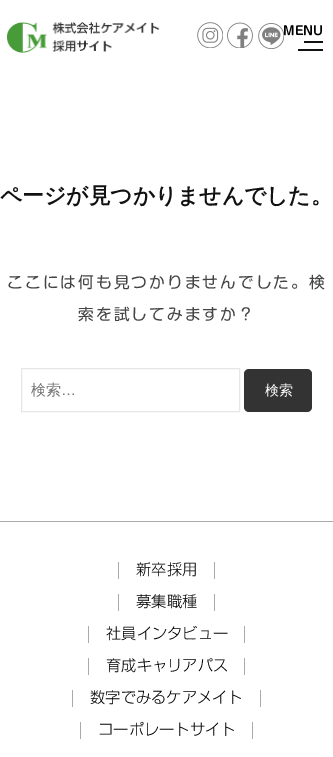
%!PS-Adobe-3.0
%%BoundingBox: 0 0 333 757
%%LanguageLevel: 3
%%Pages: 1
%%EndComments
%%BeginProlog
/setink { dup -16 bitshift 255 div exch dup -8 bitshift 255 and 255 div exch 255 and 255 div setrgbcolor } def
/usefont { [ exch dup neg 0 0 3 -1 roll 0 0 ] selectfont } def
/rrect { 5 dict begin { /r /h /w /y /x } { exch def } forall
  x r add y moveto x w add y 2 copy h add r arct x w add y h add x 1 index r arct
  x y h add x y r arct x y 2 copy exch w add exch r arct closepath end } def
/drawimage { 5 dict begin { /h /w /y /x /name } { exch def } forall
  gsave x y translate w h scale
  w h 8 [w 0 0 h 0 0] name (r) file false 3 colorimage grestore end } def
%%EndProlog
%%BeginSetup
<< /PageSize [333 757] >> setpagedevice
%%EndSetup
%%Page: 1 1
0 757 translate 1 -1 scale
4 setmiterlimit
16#FFFFFF setink
0 0 333 757 rectfill
(img1.raw) 7 22 153 31 drawimage
(img2.raw) 197 22 26 26 drawimage
(img3.raw) 227 22 26 26 drawimage
(img4.raw) 258 23 26 26 drawimage
/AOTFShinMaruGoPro-Bold 12 usefont
16#000000 setink
283 35 moveto (MENU) show
16#111111 setink
304 41 19 2 rectfill
298 49 25 2 rectfill
/WenQuanYiZenHei-Bold 21.75 usefont
0 203 moveto (ページが見つかりませんでした。) show
/AOTFShinMaruGoPro-Regular 15.75 usefont
16#444444 setink
7 288 moveto 2 0 (ここには何も見つかりませんでした。検) ashow
78 320 moveto 2 0 (索を試してみますか？) ashow
16#E6E6E6 setink
21.5 368.5 218 43 rectstroke
/WenQuanYiZenHei-Medium 15 usefont
16#757575 setink
31 395 moveto (検索) show
/LiberationSans-Regular 15 usefont
61 395 moveto (…) show
16#333333 setink
244 369 68 43 5 rrect fill
/WenQuanYiZenHei-Medium 14 usefont
16#FFFFFF setink
265 395 moveto (検索) show
16#AAAAAA setink
0 521 333 1 rectfill
118 562 1 17 rectfill
/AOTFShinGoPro-Light 15.25 usefont
16#000000 setink
136 575 moveto (新卒採用) show
16#AAAAAA setink
214 562 1 17 rectfill
118 594 1 17 rectfill
16#000000 setink
136 607 moveto (募集職種) show
16#AAAAAA setink
214 594 1 17 rectfill
88 626 1 17 rectfill
16#000000 setink
106 639 moveto (社員インタビュー) show
16#AAAAAA setink
244 626 1 17 rectfill
88 658 1 17 rectfill
16#000000 setink
106 671 moveto (育成キャリアパス) show
16#AAAAAA setink
244 658 1 17 rectfill
72 690 1 17 rectfill
16#000000 setink
90 703 moveto (数字でみるケアメイト) show
16#AAAAAA setink
260 690 1 17 rectfill
80 722 1 17 rectfill
16#000000 setink
98 735 moveto (コーポレートサイト) show
16#AAAAAA setink
252 722 1 17 rectfill
showpage
%%EOF
